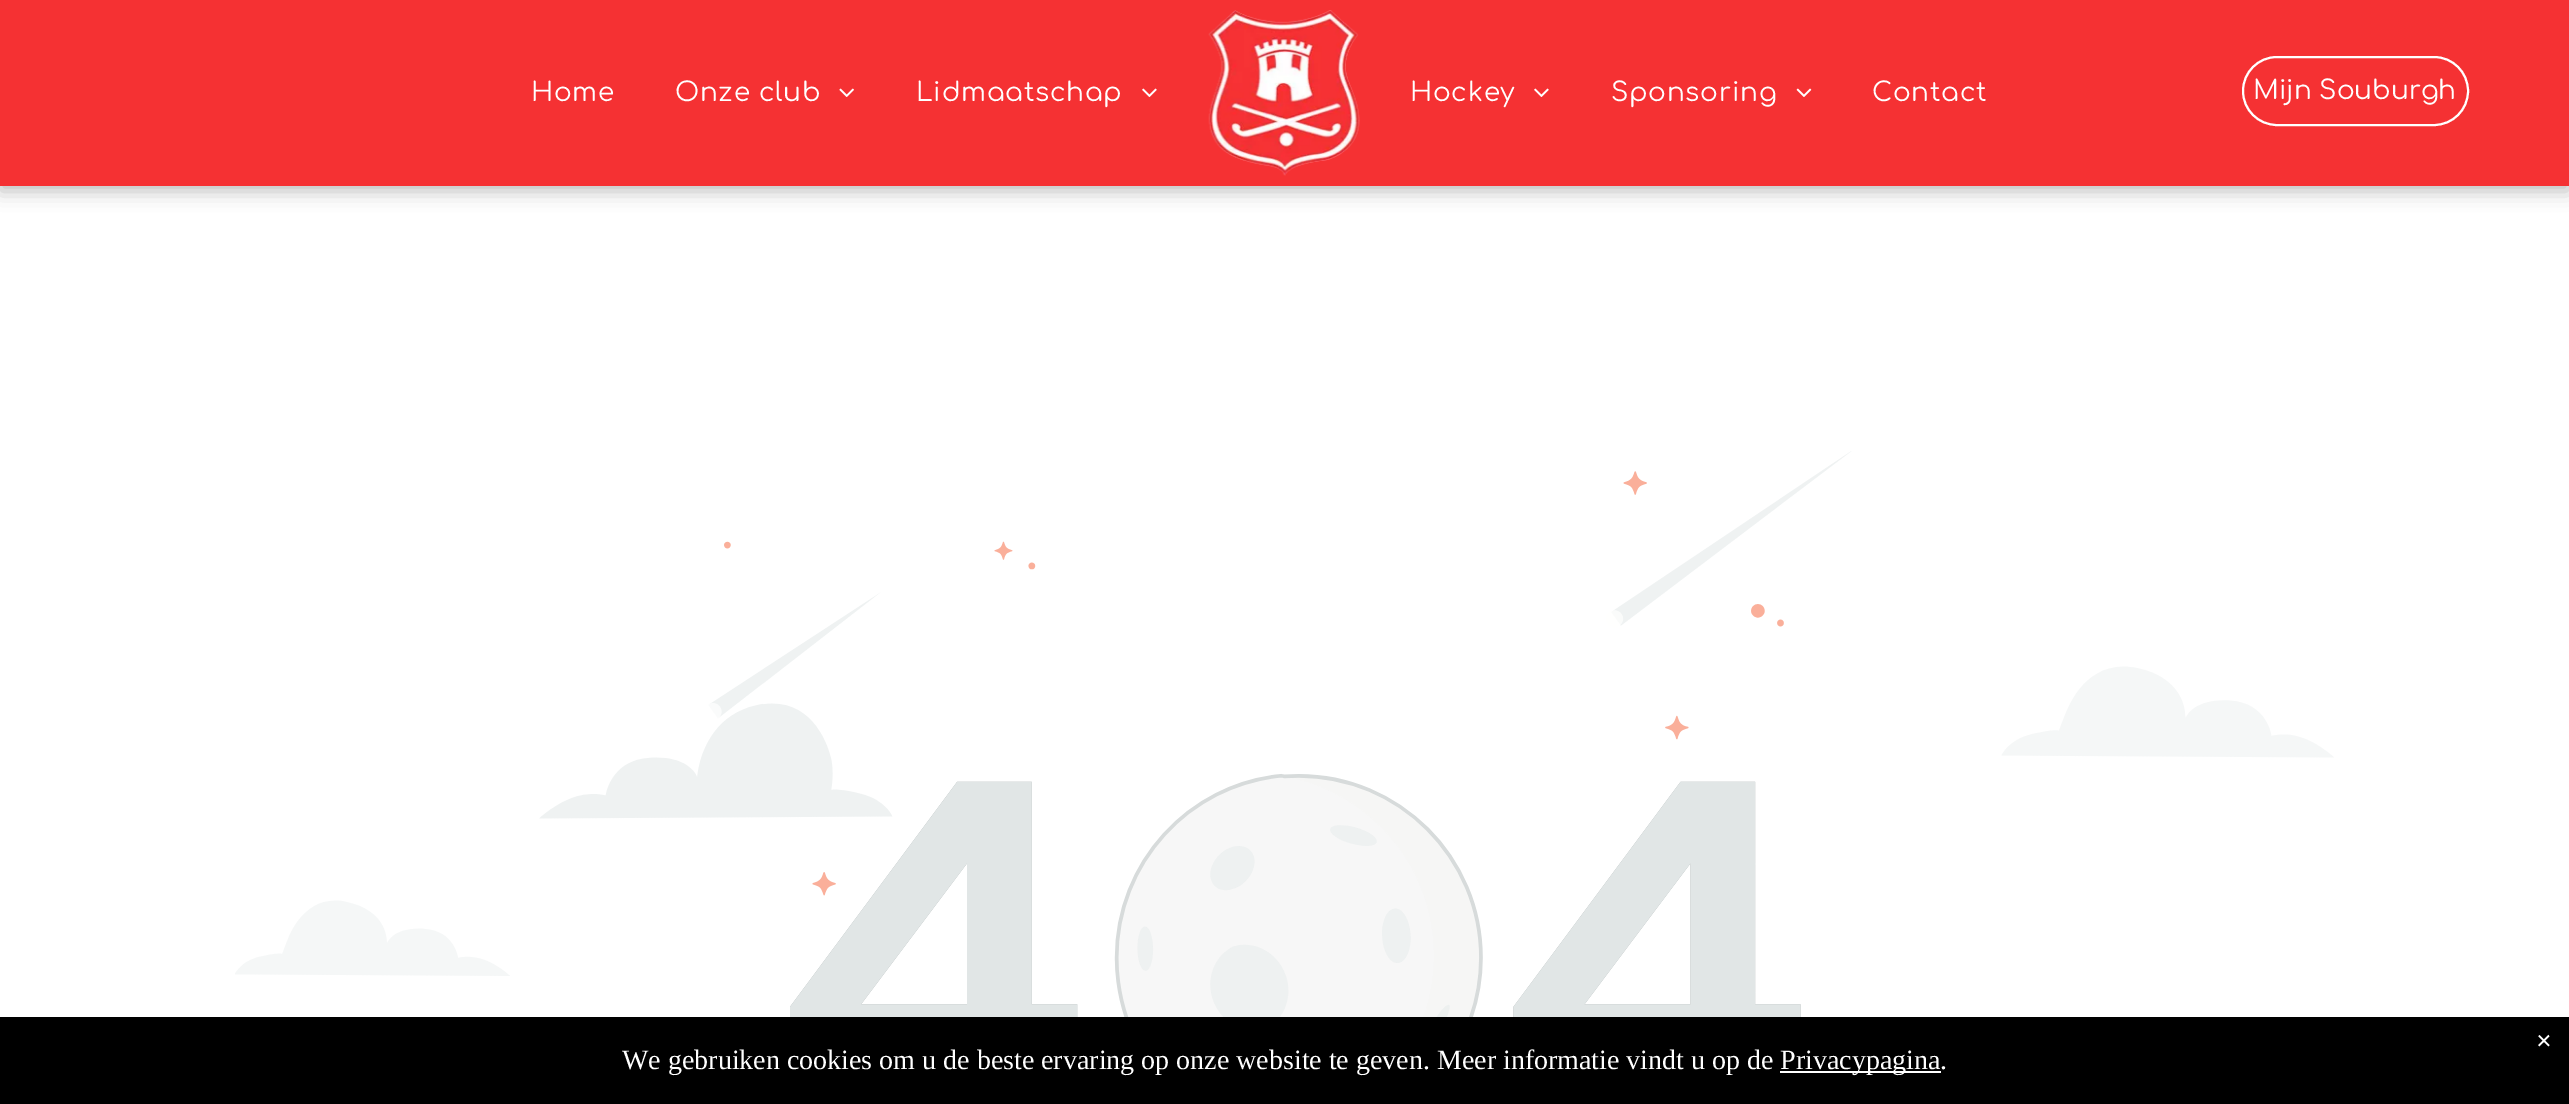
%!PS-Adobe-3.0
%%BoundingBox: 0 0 2569 1104
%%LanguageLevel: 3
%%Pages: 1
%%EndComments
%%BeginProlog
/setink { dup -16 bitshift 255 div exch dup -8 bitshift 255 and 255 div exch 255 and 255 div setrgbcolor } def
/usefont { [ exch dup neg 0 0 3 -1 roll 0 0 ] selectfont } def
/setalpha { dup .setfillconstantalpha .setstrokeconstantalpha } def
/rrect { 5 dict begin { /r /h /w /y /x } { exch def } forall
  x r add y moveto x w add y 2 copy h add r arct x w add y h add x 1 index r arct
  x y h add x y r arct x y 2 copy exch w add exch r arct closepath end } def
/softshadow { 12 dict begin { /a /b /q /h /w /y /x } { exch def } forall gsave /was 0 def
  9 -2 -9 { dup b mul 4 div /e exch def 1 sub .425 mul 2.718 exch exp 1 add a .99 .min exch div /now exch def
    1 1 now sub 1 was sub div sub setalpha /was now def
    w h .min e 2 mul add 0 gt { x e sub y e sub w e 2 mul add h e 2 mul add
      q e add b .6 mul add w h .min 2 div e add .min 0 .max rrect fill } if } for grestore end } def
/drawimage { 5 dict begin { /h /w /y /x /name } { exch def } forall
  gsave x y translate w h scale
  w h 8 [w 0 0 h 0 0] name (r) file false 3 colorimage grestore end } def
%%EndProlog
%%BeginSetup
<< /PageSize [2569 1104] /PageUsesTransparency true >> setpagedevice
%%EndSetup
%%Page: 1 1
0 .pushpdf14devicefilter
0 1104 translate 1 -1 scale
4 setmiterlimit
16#FFFFFF setink
0 0 2569 1104 rectfill
16#F53133 setink
0 0 2569 186 rectfill
gsave
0 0 moveto 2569 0 lineto 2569 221 lineto 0 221 lineto closepath 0 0 moveto 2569 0 lineto 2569 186 lineto 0 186 lineto closepath eoclip newpath
16#000000 setink
0 5 2569 186 0 9.5 0.25 softshadow
grestore
/Comfortaa-Regular 26.25 usefont
16#FFFFFF setink
531 101 moveto 0.75 0 (Home) ashow
675 101 moveto 0.75 0 (Onze club) ashow
(img1.raw) 839 88 15 9 drawimage
916 101 moveto 0.75 0 (Lidmaatschap) ashow
(img2.raw) 1142 88 15 9 drawimage
(img3.raw) 1208 10 152 166 drawimage
1410 101 moveto 0.75 0 (Hockey) ashow
(img2.raw) 1534 88 15 9 drawimage
1611 101 moveto 0.75 0 (Sponsoring) ashow
(img4.raw) 1796 88 16 9 drawimage
1872 101 moveto 0.75 0 (Contact) ashow
2 setlinewidth
2243 57 225 68 34 rrect stroke
2253 99 moveto (Mijn Souburgh) show
(img5.raw) 235 451 2099 566 drawimage
16#000000 setink
0 1017 2569 87 rectfill
/LiberationSerif-Bold 28 usefont
16#FFFFFF setink
2536 1050 moveto (×) show
/LiberationSerif-Regular 28 usefont
622 1069 moveto (We gebruiken cookies om u de beste ervaring op onze website te geven. Meer informatie vindt u op de) show
1780 1071 161 2 rectfill
1780 1069 moveto (Privacypagina.) show
.poppdf14devicefilter showpage
%%EOF
